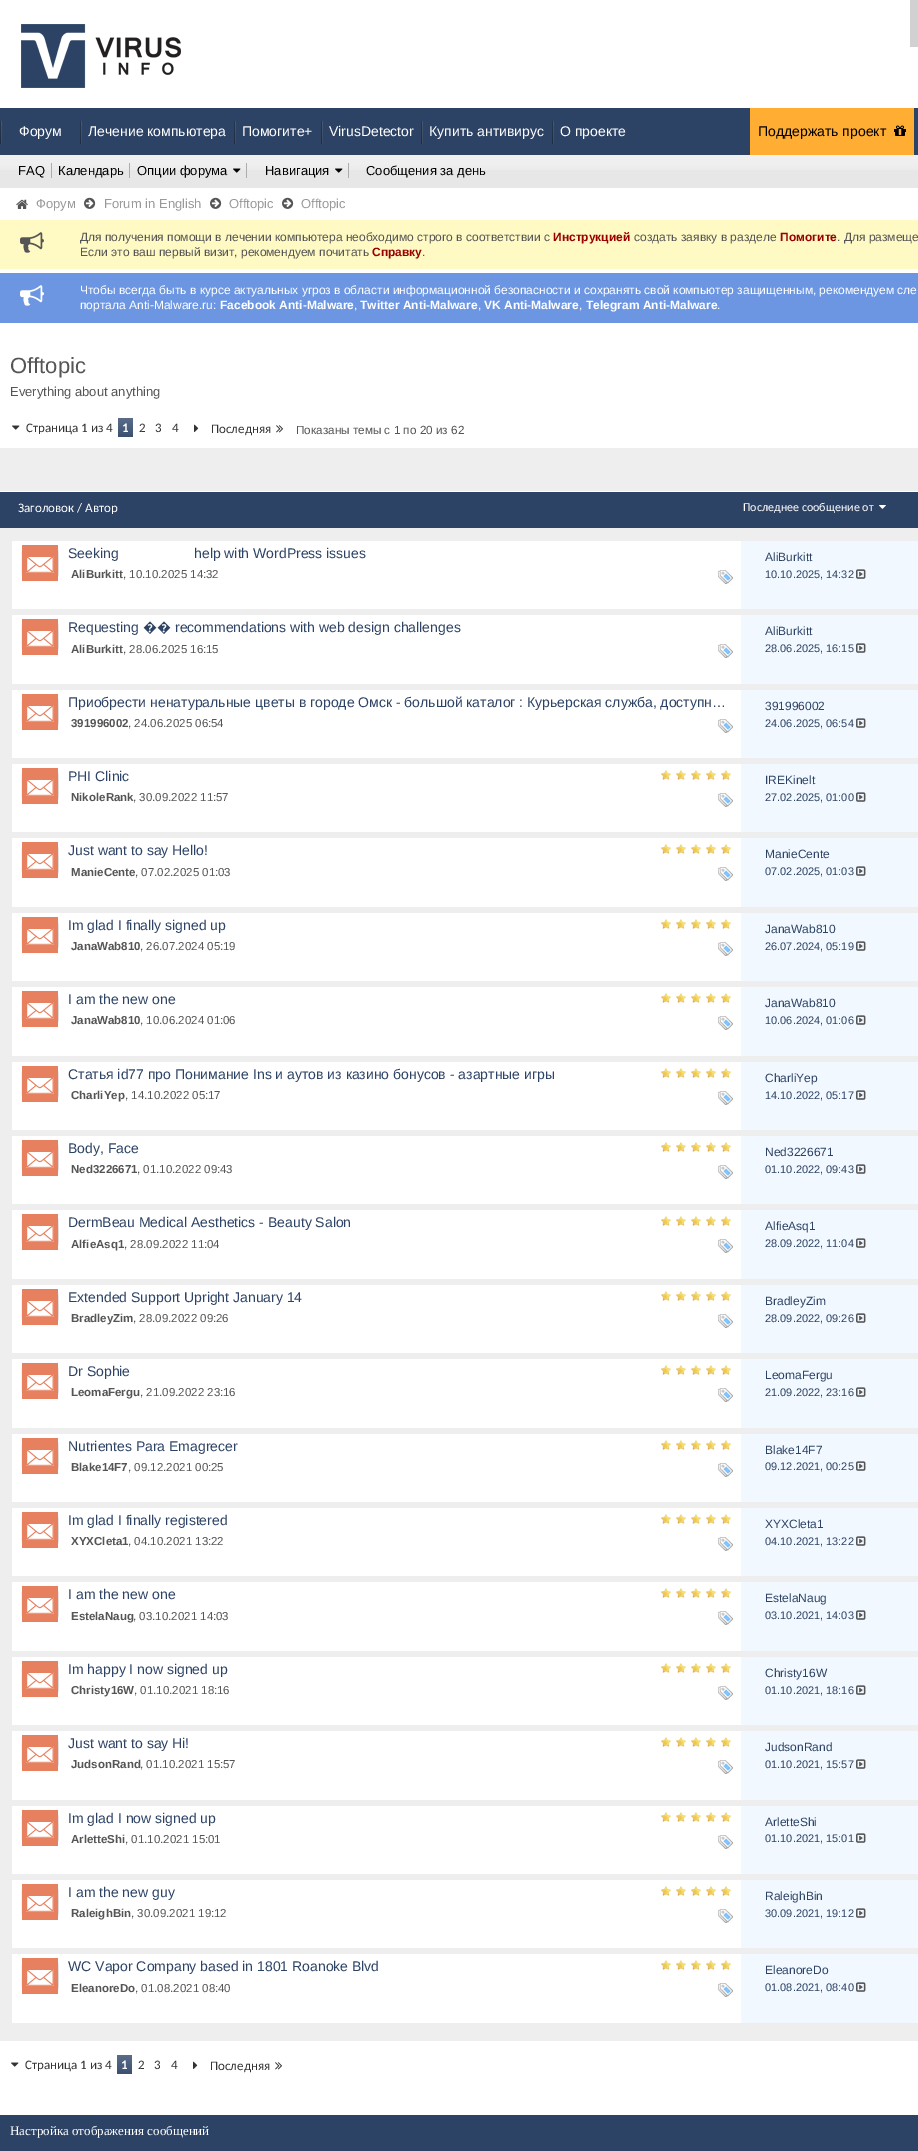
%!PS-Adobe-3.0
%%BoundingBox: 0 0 918 2151
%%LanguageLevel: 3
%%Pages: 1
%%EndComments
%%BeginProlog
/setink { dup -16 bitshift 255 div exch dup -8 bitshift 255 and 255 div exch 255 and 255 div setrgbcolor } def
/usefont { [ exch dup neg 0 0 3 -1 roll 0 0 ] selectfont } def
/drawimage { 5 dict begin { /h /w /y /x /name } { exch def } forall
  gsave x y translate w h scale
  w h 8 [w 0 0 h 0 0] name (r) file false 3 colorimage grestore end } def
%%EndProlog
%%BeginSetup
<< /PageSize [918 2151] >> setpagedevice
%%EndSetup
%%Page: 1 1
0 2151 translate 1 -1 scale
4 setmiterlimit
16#FFFFFF setink
0 0 918 2151 rectfill
(img1.raw) 21 24 160 64 drawimage
16#D1D1D1 setink
910 0 8 47 rectfill
16#E7E7E7 setink
0 170 918 18 rectfill
(img2.raw) 0 155 918 15 drawimage
16#2D4365 setink
0 108 918 47 rectfill
(img3.raw) 0 121 2 23 drawimage
/LiberationSans-Regular 14 usefont
16#FFFFFF setink
19 136 moveto (Форум) show
(img3.raw) 321 121 2 23 drawimage
329 136 moveto (VirusDetector) show
16#FFAD33 setink
750 108 164 47 rectfill
16#000000 setink
758 136 moveto (Поддержать проект) show
(img4.raw) 894 125 12 11 drawimage
/LiberationSans-Regular 13 usefont
18 175 moveto (FAQ) show
16#ADADAD setink
51 163 1 15 rectfill
16#000000 setink
58 175 moveto (Календарь) show
16#ADADAD setink
129 163 1 15 rectfill
16#000000 setink
137 175 moveto (Опции форума) show
16#ADADAD setink
246 163 1 15 rectfill
(img5.raw) 233 168 8 5 drawimage
16#000000 setink
265 175 moveto (Навигация) show
16#ADADAD setink
348 163 1 15 rectfill
(img5.raw) 335 168 8 5 drawimage
16#000000 setink
366 175 moveto (Сообщения за день) show
(img3.raw) 80 121 2 23 drawimage
/LiberationSans-Regular 14 usefont
16#FFFFFF setink
88 136 moveto (Лечение компьютера) show
(img3.raw) 234 121 2 23 drawimage
242 136 moveto (Помогите+) show
(img3.raw) 421 121 2 23 drawimage
429 136 moveto (Купить антивирус) show
(img3.raw) 552 121 2 23 drawimage
560 136 moveto (О проекте) show
(img6.raw) 16 199 12 10 drawimage
/LiberationSans-Regular 13 usefont
16#999999 setink
36 208 moveto (Форум) show
(img7.raw) 84 197 12 12 drawimage
104 208 moveto (Forum in English) show
(img7.raw) 210 197 12 12 drawimage
229 208 moveto (Offtopic) show
(img7.raw) 282 197 12 12 drawimage
301 208 moveto (Offtopic) show
16#FFF9C4 setink
0 220 918 49 rectfill
(img8.raw) 20 232 24 21 drawimage
/LiberationSans-Regular 12 usefont
16#555555 setink
80 241 moveto (Для получения помощи в лечении компьютера необходимо строго в соответствии с) show
/LiberationSans-Bold 12 usefont
16#990000 setink
553 241 moveto (Инструкцией) show
/LiberationSans-Regular 12 usefont
16#555555 setink
634 241 moveto (создать заявку в разделе) show
/LiberationSans-Bold 12 usefont
16#990000 setink
780 241 moveto (Помогите) show
/LiberationSans-Regular 12 usefont
16#555555 setink
837 241 moveto (. Для размеще) show
80 256 moveto (Если это ваш первый визит, рекомендуем почитать) show
/LiberationSans-Bold 12 usefont
16#990000 setink
372 256 moveto (Справку) show
/LiberationSans-Regular 12 usefont
16#555555 setink
422 256 moveto (.) show
16#6C96E2 setink
0 273 918 50 rectfill
(img9.raw) 20 285 24 21 drawimage
16#FFFFFF setink
80 294 moveto (Чтобы всегда быть в курсе актуальных угроз в области информационной безопасности и сохранять свой компьютер защищенным, рекомендуем сле) show
80 309 moveto (портала Anti-Malware.ru:) show
/LiberationSans-Bold 12 usefont
220 309 moveto (Facebook Anti-Malware) show
/LiberationSans-Regular 12 usefont
354 309 moveto (,) show
/LiberationSans-Bold 12 usefont
360 309 moveto (Twitter Anti-Malware) show
/LiberationSans-Regular 12 usefont
478 309 moveto (,) show
/LiberationSans-Bold 12 usefont
484 309 moveto (VK Anti-Malware) show
/LiberationSans-Regular 12 usefont
579 309 moveto (,) show
/LiberationSans-Bold 12 usefont
586 309 moveto (Telegram Anti-Malware) show
/LiberationSans-Regular 12 usefont
717 309 moveto (.) show
/LiberationSans-Regular 22 usefont
16#555555 setink
10 373 moveto (Offtopic) show
/LiberationSans-Regular 13 usefont
10 396 moveto (Everything about anything) show
(img10.raw) 12 425 8 5 drawimage
/Carlito-Regular 13 usefont
16#333333 setink
26 432 moveto (Страница 1 из 4) show
16#33496B setink
118 418 15 19 rectfill
(img11.raw) 118 418 15 19 drawimage
/Carlito-Bold 13 usefont
16#FFFFFF setink
122 432 moveto (1) show
/Carlito-Regular 13 usefont
16#333333 setink
[
    [(2) 139 432]
    [(3) 155 432]
    [(4) 172 432]
] { aload pop moveto show } forall
(img12.raw) 194 424 5 8 drawimage
211 433 moveto (Последняя) show
(img13.raw) 276 425 8 8 drawimage
/LiberationSans-Regular 11.75 usefont
16#555555 setink
296 434 moveto (Показаны темы с 1 по 20 из 62) show
[
    [0 448 918 43 16#EEEEEE]
    [0 528 918 1513 16#EEEEEE]
    [0 492 918 36 16#2D4365]
] { aload pop setink rectfill } forall
/Carlito-Regular 13 usefont
16#FFFFFF setink
18 512 moveto (Заголовок / Автор) show
/Carlito-Regular 12 usefont
743 511 moveto (Последнее сообщение от) show
(img14.raw) 879 505 7 4 drawimage
12 541 729 68 rectfill
(img15.raw) 21 545 38 36 drawimage
/LiberationSans-Regular 14 usefont
16#2D4365 setink
68 558 moveto (Seeking) show
194 558 moveto (help with WordPress issues) show
/LiberationSans-Bold 11.5 usefont
16#555555 setink
71 578 moveto (AliBurkitt) show
/LiberationSans-Regular 11.5 usefont
123 578 moveto (, 10.10.2025 14:32) show
(img16.raw) 718 570 15 14 drawimage
16#F1F8FF setink
741 541 177 68 rectfill
/LiberationSans-Regular 12 usefont
16#2D4365 setink
765 561 moveto (AliBurkitt) show
/LiberationSans-Regular 11 usefont
765 578 moveto (10.10.2025, 14:32) show
(img17.raw) 856 569 10 10 drawimage
16#FFFFFF setink
12 615 729 69 rectfill
(img15.raw) 21 619 38 36 drawimage
/LiberationSans-Regular 14 usefont
16#2D4365 setink
68 632 moveto (Requesting) show
/NotoSans-Regular 14 usefont
143 632 moveto (��) show
/LiberationSans-Regular 14 usefont
175 632 moveto (recommendations with web design challenges) show
/LiberationSans-Bold 11.5 usefont
16#555555 setink
71 653 moveto (AliBurkitt) show
/LiberationSans-Regular 11.5 usefont
123 653 moveto (, 28.06.2025 16:15) show
(img16.raw) 718 644 15 14 drawimage
16#F1F8FF setink
741 615 177 69 rectfill
/LiberationSans-Regular 12 usefont
16#2D4365 setink
765 635 moveto (AliBurkitt) show
/LiberationSans-Regular 11 usefont
765 652 moveto (28.06.2025, 16:15) show
(img17.raw) 856 643 10 10 drawimage
16#FFFFFF setink
12 690 729 68 rectfill
(img15.raw) 21 694 38 36 drawimage
/LiberationSans-Regular 14 usefont
16#2D4365 setink
68 707 moveto (Приобрести ненатуральные цветы в городе Омск - большой каталог : Курьерская служба, доступн…) show
/LiberationSans-Bold 11.5 usefont
16#555555 setink
71 727 moveto (391996002) show
/LiberationSans-Regular 11.5 usefont
128 727 moveto (, 24.06.2025 06:54) show
(img16.raw) 718 719 15 14 drawimage
16#F1F8FF setink
741 690 177 68 rectfill
/LiberationSans-Regular 12 usefont
16#2D4365 setink
765 710 moveto (391996002) show
/LiberationSans-Regular 11 usefont
765 727 moveto (24.06.2025, 06:54) show
(img17.raw) 856 718 10 10 drawimage
16#FFFFFF setink
12 764 729 68 rectfill
(img15.raw) 21 768 38 36 drawimage
(img18.raw) 661 770 70 10 drawimage
/LiberationSans-Regular 14 usefont
16#2D4365 setink
68 781 moveto (PHI Clinic) show
/LiberationSans-Bold 11.5 usefont
16#555555 setink
71 801 moveto (NikoleRank) show
/LiberationSans-Regular 11.5 usefont
133 801 moveto (, 30.09.2022 11:57) show
(img16.raw) 718 793 15 14 drawimage
16#F1F8FF setink
741 764 177 68 rectfill
/LiberationSans-Regular 12 usefont
16#2D4365 setink
765 784 moveto (IREKinelt) show
/LiberationSans-Regular 11 usefont
765 801 moveto (27.02.2025, 01:00) show
(img17.raw) 856 792 10 10 drawimage
16#FFFFFF setink
12 838 729 69 rectfill
(img15.raw) 21 842 38 36 drawimage
(img18.raw) 661 844 70 10 drawimage
/LiberationSans-Regular 14 usefont
16#2D4365 setink
68 855 moveto (Just want to say Hello!) show
/LiberationSans-Bold 11.5 usefont
16#555555 setink
71 876 moveto (ManieCente) show
/LiberationSans-Regular 11.5 usefont
135 876 moveto (, 07.02.2025 01:03) show
(img16.raw) 718 867 15 14 drawimage
16#F1F8FF setink
741 838 177 69 rectfill
/LiberationSans-Regular 12 usefont
16#2D4365 setink
765 858 moveto (ManieCente) show
/LiberationSans-Regular 11 usefont
765 875 moveto (07.02.2025, 01:03) show
(img17.raw) 856 866 10 10 drawimage
16#FFFFFF setink
12 913 729 68 rectfill
(img15.raw) 21 917 38 36 drawimage
(img18.raw) 661 919 70 10 drawimage
/LiberationSans-Regular 14 usefont
16#2D4365 setink
68 930 moveto (Im glad I finally signed up) show
/LiberationSans-Bold 11.5 usefont
16#555555 setink
71 950 moveto (JanaWab810) show
/LiberationSans-Regular 11.5 usefont
140 950 moveto (, 26.07.2024 05:19) show
(img16.raw) 718 942 15 14 drawimage
16#F1F8FF setink
741 913 177 68 rectfill
/LiberationSans-Regular 12 usefont
16#2D4365 setink
765 933 moveto (JanaWab810) show
/LiberationSans-Regular 11 usefont
765 950 moveto (26.07.2024, 05:19) show
(img17.raw) 856 941 10 10 drawimage
16#FFFFFF setink
12 987 729 69 rectfill
(img15.raw) 21 991 38 36 drawimage
(img18.raw) 661 993 70 10 drawimage
/LiberationSans-Regular 14 usefont
16#2D4365 setink
68 1004 moveto (I am the new one) show
/LiberationSans-Bold 11.5 usefont
16#555555 setink
71 1024 moveto (JanaWab810) show
/LiberationSans-Regular 11.5 usefont
140 1024 moveto (, 10.06.2024 01:06) show
(img16.raw) 718 1016 15 14 drawimage
16#F1F8FF setink
741 987 177 69 rectfill
/LiberationSans-Regular 12 usefont
16#2D4365 setink
765 1007 moveto (JanaWab810) show
/LiberationSans-Regular 11 usefont
765 1024 moveto (10.06.2024, 01:06) show
(img17.raw) 856 1015 10 10 drawimage
16#FFFFFF setink
12 1062 729 68 rectfill
(img15.raw) 21 1066 38 36 drawimage
(img18.raw) 661 1068 70 10 drawimage
/LiberationSans-Regular 14 usefont
16#2D4365 setink
68 1079 moveto (Статья id77 про Понимание Ins и аутов из казино бонусов - азартные игры) show
/LiberationSans-Bold 11.5 usefont
16#555555 setink
71 1099 moveto (CharliYep) show
/LiberationSans-Regular 11.5 usefont
125 1099 moveto (, 14.10.2022 05:17) show
(img16.raw) 718 1091 15 14 drawimage
16#F1F8FF setink
741 1062 177 68 rectfill
/LiberationSans-Regular 12 usefont
16#2D4365 setink
765 1082 moveto (CharliYep) show
/LiberationSans-Regular 11 usefont
765 1099 moveto (14.10.2022, 05:17) show
(img17.raw) 856 1090 10 10 drawimage
16#FFFFFF setink
12 1136 729 68 rectfill
(img15.raw) 21 1140 38 36 drawimage
(img18.raw) 661 1142 70 10 drawimage
/LiberationSans-Regular 14 usefont
16#2D4365 setink
68 1153 moveto (Body, Face) show
/LiberationSans-Bold 11.5 usefont
16#555555 setink
71 1173 moveto (Ned3226671) show
/LiberationSans-Regular 11.5 usefont
137 1173 moveto (, 01.10.2022 09:43) show
(img16.raw) 718 1165 15 14 drawimage
16#F1F8FF setink
741 1136 177 68 rectfill
/LiberationSans-Regular 12 usefont
16#2D4365 setink
765 1156 moveto (Ned3226671) show
/LiberationSans-Regular 11 usefont
765 1173 moveto (01.10.2022, 09:43) show
(img17.raw) 856 1164 10 10 drawimage
16#FFFFFF setink
12 1210 729 69 rectfill
(img15.raw) 21 1214 38 36 drawimage
(img18.raw) 661 1216 70 10 drawimage
/LiberationSans-Regular 14 usefont
16#2D4365 setink
68 1227 moveto (DermBeau Medical Aesthetics - Beauty Salon) show
/LiberationSans-Bold 11.5 usefont
16#555555 setink
71 1248 moveto (AlfieAsq1) show
/LiberationSans-Regular 11.5 usefont
124 1248 moveto (, 28.09.2022 11:04) show
(img16.raw) 718 1239 15 14 drawimage
16#F1F8FF setink
741 1210 177 69 rectfill
/LiberationSans-Regular 12 usefont
16#2D4365 setink
765 1230 moveto (AlfieAsq1) show
/LiberationSans-Regular 11 usefont
765 1247 moveto (28.09.2022, 11:04) show
(img17.raw) 856 1238 10 10 drawimage
16#FFFFFF setink
12 1285 729 68 rectfill
(img15.raw) 21 1289 38 36 drawimage
(img18.raw) 661 1291 70 10 drawimage
/LiberationSans-Regular 14 usefont
16#2D4365 setink
68 1302 moveto (Extended Support Upright January 14) show
/LiberationSans-Bold 11.5 usefont
16#555555 setink
71 1322 moveto (BradleyZim) show
/LiberationSans-Regular 11.5 usefont
133 1322 moveto (, 28.09.2022 09:26) show
(img16.raw) 718 1314 15 14 drawimage
16#F1F8FF setink
741 1285 177 68 rectfill
/LiberationSans-Regular 12 usefont
16#2D4365 setink
765 1305 moveto (BradleyZim) show
/LiberationSans-Regular 11 usefont
765 1322 moveto (28.09.2022, 09:26) show
(img17.raw) 856 1313 10 10 drawimage
16#FFFFFF setink
12 1359 729 69 rectfill
(img15.raw) 21 1363 38 36 drawimage
(img18.raw) 661 1365 70 10 drawimage
/LiberationSans-Regular 14 usefont
16#2D4365 setink
68 1376 moveto (Dr Sophie) show
/LiberationSans-Bold 11.5 usefont
16#555555 setink
71 1396 moveto (LeomaFergu) show
/LiberationSans-Regular 11.5 usefont
140 1396 moveto (, 21.09.2022 23:16) show
(img16.raw) 718 1388 15 14 drawimage
16#F1F8FF setink
741 1359 177 69 rectfill
/LiberationSans-Regular 12 usefont
16#2D4365 setink
765 1379 moveto (LeomaFergu) show
/LiberationSans-Regular 11 usefont
765 1396 moveto (21.09.2022, 23:16) show
(img17.raw) 856 1387 10 10 drawimage
16#FFFFFF setink
12 1434 729 68 rectfill
(img15.raw) 21 1438 38 36 drawimage
(img18.raw) 661 1440 70 10 drawimage
/LiberationSans-Regular 14 usefont
16#2D4365 setink
68 1451 moveto (Nutrientes Para Emagrecer) show
/LiberationSans-Bold 11.5 usefont
16#555555 setink
71 1471 moveto (Blake14F7) show
/LiberationSans-Regular 11.5 usefont
128 1471 moveto (, 09.12.2021 00:25) show
(img16.raw) 718 1463 15 14 drawimage
16#F1F8FF setink
741 1434 177 68 rectfill
/LiberationSans-Regular 12 usefont
16#2D4365 setink
765 1454 moveto (Blake14F7) show
/LiberationSans-Regular 11 usefont
765 1470 moveto (09.12.2021, 00:25) show
(img17.raw) 856 1461 10 10 drawimage
16#FFFFFF setink
12 1508 729 68 rectfill
(img15.raw) 21 1512 38 36 drawimage
(img18.raw) 661 1514 70 10 drawimage
/LiberationSans-Regular 14 usefont
16#2D4365 setink
68 1525 moveto (Im glad I finally registered) show
/LiberationSans-Bold 11.5 usefont
16#555555 setink
71 1545 moveto (XYXCleta1) show
/LiberationSans-Regular 11.5 usefont
128 1545 moveto (, 04.10.2021 13:22) show
(img16.raw) 718 1537 15 14 drawimage
16#F1F8FF setink
741 1508 177 68 rectfill
/LiberationSans-Regular 12 usefont
16#2D4365 setink
765 1528 moveto (XYXCleta1) show
/LiberationSans-Regular 11 usefont
765 1545 moveto (04.10.2021, 13:22) show
(img17.raw) 856 1536 10 10 drawimage
16#FFFFFF setink
12 1582 729 69 rectfill
(img15.raw) 21 1586 38 36 drawimage
(img18.raw) 661 1588 70 10 drawimage
/LiberationSans-Regular 14 usefont
16#2D4365 setink
68 1599 moveto (I am the new one) show
/LiberationSans-Bold 11.5 usefont
16#555555 setink
71 1620 moveto (EstelaNaug) show
/LiberationSans-Regular 11.5 usefont
133 1620 moveto (, 03.10.2021 14:03) show
(img16.raw) 718 1611 15 14 drawimage
16#F1F8FF setink
741 1582 177 69 rectfill
/LiberationSans-Regular 12 usefont
16#2D4365 setink
765 1602 moveto (EstelaNaug) show
/LiberationSans-Regular 11 usefont
765 1619 moveto (03.10.2021, 14:03) show
(img17.raw) 856 1610 10 10 drawimage
16#FFFFFF setink
12 1657 729 68 rectfill
(img15.raw) 21 1661 38 36 drawimage
(img18.raw) 661 1663 70 10 drawimage
/LiberationSans-Regular 14 usefont
16#2D4365 setink
68 1674 moveto (Im happy I now signed up) show
/LiberationSans-Bold 11.5 usefont
16#555555 setink
71 1694 moveto (Christy16W) show
/LiberationSans-Regular 11.5 usefont
134 1694 moveto (, 01.10.2021 18:16) show
(img16.raw) 718 1686 15 14 drawimage
16#F1F8FF setink
741 1657 177 68 rectfill
/LiberationSans-Regular 12 usefont
16#2D4365 setink
765 1677 moveto (Christy16W) show
/LiberationSans-Regular 11 usefont
765 1694 moveto (01.10.2021, 18:16) show
(img17.raw) 856 1685 10 10 drawimage
16#FFFFFF setink
12 1731 729 69 rectfill
(img15.raw) 21 1735 38 36 drawimage
(img18.raw) 661 1737 70 10 drawimage
/LiberationSans-Regular 14 usefont
16#2D4365 setink
68 1748 moveto (Just want to say Hi!) show
/LiberationSans-Bold 11.5 usefont
16#555555 setink
71 1768 moveto (JudsonRand) show
/LiberationSans-Regular 11.5 usefont
140 1768 moveto (, 01.10.2021 15:57) show
(img16.raw) 718 1760 15 14 drawimage
16#F1F8FF setink
741 1731 177 69 rectfill
/LiberationSans-Regular 12 usefont
16#2D4365 setink
765 1751 moveto (JudsonRand) show
/LiberationSans-Regular 11 usefont
765 1768 moveto (01.10.2021, 15:57) show
(img17.raw) 856 1759 10 10 drawimage
16#FFFFFF setink
12 1806 729 68 rectfill
(img15.raw) 21 1810 38 36 drawimage
(img18.raw) 661 1812 70 10 drawimage
/LiberationSans-Regular 14 usefont
16#2D4365 setink
68 1823 moveto (Im glad I now signed up) show
/LiberationSans-Bold 11.5 usefont
16#555555 setink
71 1843 moveto (ArletteShi) show
/LiberationSans-Regular 11.5 usefont
125 1843 moveto (, 01.10.2021 15:01) show
(img16.raw) 718 1835 15 14 drawimage
16#F1F8FF setink
741 1806 177 68 rectfill
/LiberationSans-Regular 12 usefont
16#2D4365 setink
765 1826 moveto (ArletteShi) show
/LiberationSans-Regular 11 usefont
765 1842 moveto (01.10.2021, 15:01) show
(img17.raw) 856 1833 10 10 drawimage
16#FFFFFF setink
12 1880 729 68 rectfill
(img15.raw) 21 1884 38 36 drawimage
(img18.raw) 661 1886 70 10 drawimage
/LiberationSans-Regular 14 usefont
16#2D4365 setink
68 1897 moveto (I am the new guy) show
/LiberationSans-Bold 11.5 usefont
16#555555 setink
71 1917 moveto (RaleighBin) show
/LiberationSans-Regular 11.5 usefont
131 1917 moveto (, 30.09.2021 19:12) show
(img16.raw) 718 1909 15 14 drawimage
16#F1F8FF setink
741 1880 177 68 rectfill
/LiberationSans-Regular 12 usefont
16#2D4365 setink
765 1900 moveto (RaleighBin) show
/LiberationSans-Regular 11 usefont
765 1917 moveto (30.09.2021, 19:12) show
(img17.raw) 856 1908 10 10 drawimage
16#FFFFFF setink
12 1954 729 69 rectfill
(img15.raw) 21 1958 38 36 drawimage
(img18.raw) 661 1960 70 10 drawimage
/LiberationSans-Regular 14 usefont
16#2D4365 setink
68 1971 moveto (WC Vapor Company based in 1801 Roanoke Blvd) show
/LiberationSans-Bold 11.5 usefont
16#555555 setink
71 1992 moveto (EleanoreDo) show
/LiberationSans-Regular 11.5 usefont
135 1992 moveto (, 01.08.2021 08:40) show
(img16.raw) 718 1983 15 14 drawimage
16#F1F8FF setink
741 1954 177 69 rectfill
/LiberationSans-Regular 12 usefont
16#2D4365 setink
765 1974 moveto (EleanoreDo) show
/LiberationSans-Regular 11 usefont
765 1991 moveto (01.08.2021, 08:40) show
(img17.raw) 856 1982 10 10 drawimage
(img10.raw) 11 2062 8 5 drawimage
/Carlito-Regular 13 usefont
16#333333 setink
25 2069 moveto (Страница 1 из 4) show
16#33496B setink
117 2055 15 19 rectfill
(img11.raw) 117 2055 15 19 drawimage
/Carlito-Bold 13 usefont
16#FFFFFF setink
121 2069 moveto (1) show
/Carlito-Regular 13 usefont
16#333333 setink
[
    [(2) 138 2069]
    [(3) 154 2069]
    [(4) 171 2069]
] { aload pop moveto show } forall
(img12.raw) 193 2061 5 8 drawimage
210 2070 moveto (Последняя) show
(img13.raw) 275 2062 8 8 drawimage
16#2D4365 setink
0 2115 918 36 rectfill
/LiberationSerif-Regular 13 usefont
16#FFFFFF setink
10 2135 moveto (Настройка отображения сообщений) show
showpage
%%EOF
